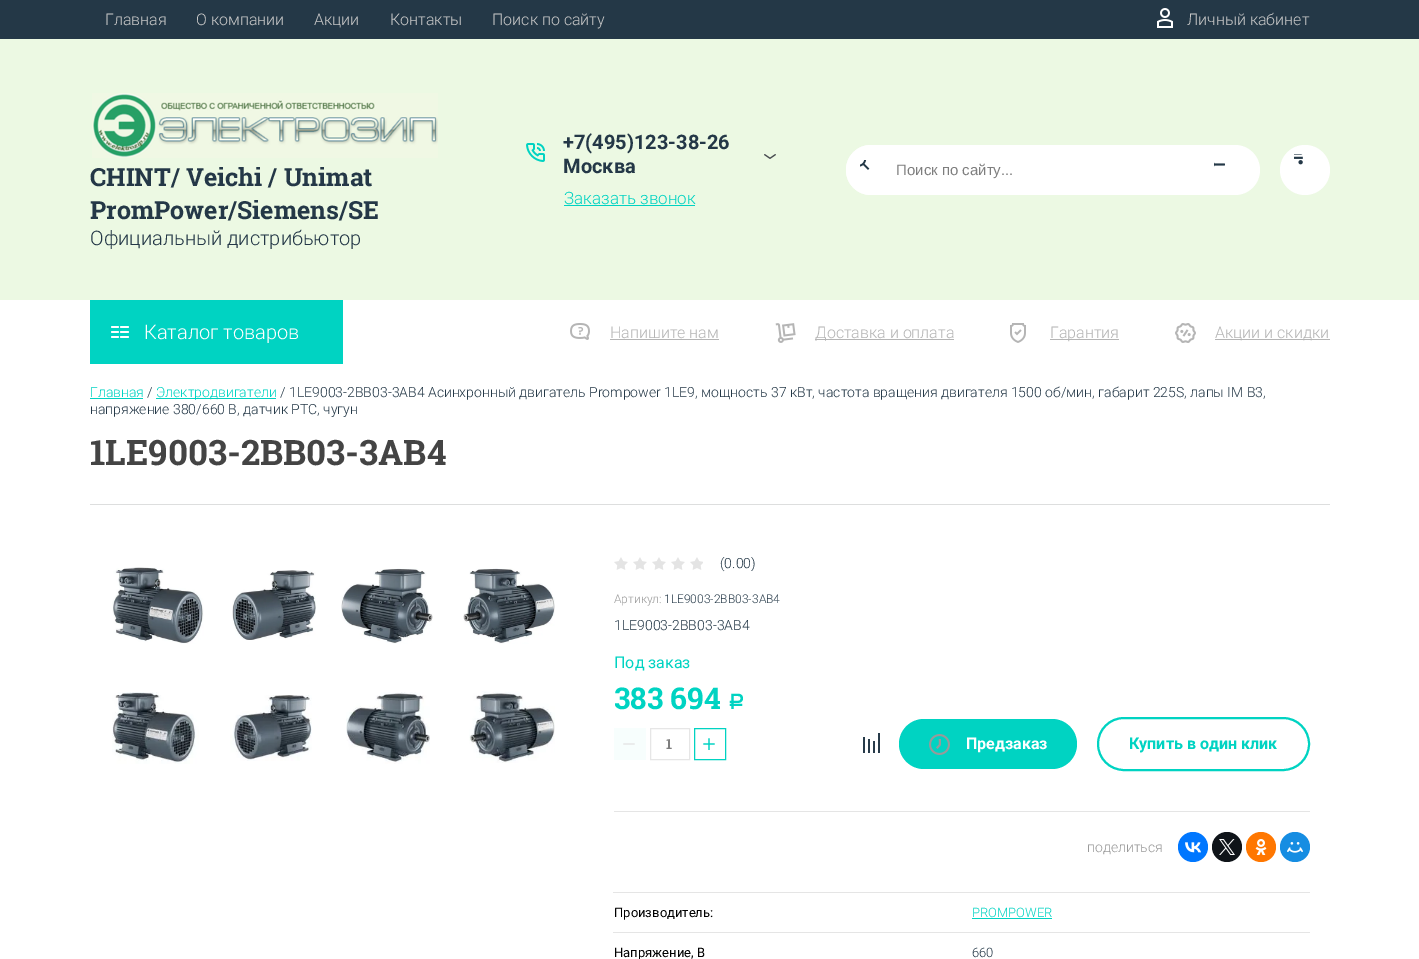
%!PS-Adobe-3.0
%%BoundingBox: 0 0 1419 959
%%LanguageLevel: 3
%%Pages: 1
%%EndComments
%%BeginProlog
/setink { dup -16 bitshift 255 div exch dup -8 bitshift 255 and 255 div exch 255 and 255 div setrgbcolor } def
/usefont { [ exch dup neg 0 0 3 -1 roll 0 0 ] selectfont } def
/disc { newpath 0 360 arc closepath } def
/rrect { 5 dict begin { /r /h /w /y /x } { exch def } forall
  x r add y moveto x w add y 2 copy h add r arct x w add y h add x 1 index r arct
  x y h add x y r arct x y 2 copy exch w add exch r arct closepath end } def
/drawimage { 5 dict begin { /h /w /y /x /name } { exch def } forall
  gsave x y translate w h scale
  w h 8 [w 0 0 h 0 0] name (r) file false 3 colorimage grestore end } def
%%EndProlog
%%BeginSetup
<< /PageSize [1419 959] >> setpagedevice
%%EndSetup
%%Page: 1 1
0 959 translate 1 -1 scale
4 setmiterlimit
16#FFFFFF setink
0 0 1419 959 rectfill
16#243847 setink
0 0 1419 39 rectfill
/Roboto-Light 16 usefont
16#C8C8C8 setink
[
    [(Главная) 105 25]
    [(О компании) 196 25]
    [(Акции) 314 25]
    [(Контакты) 390 25]
    [(Поиск по сайту) 492 25]
] { aload pop moveto show } forall
(img1.raw) 1157 8 16 20 drawimage
1187 25 moveto (Личный кабинет) show
16#ECF9E3 setink
0 39 1419 261 rectfill
(img2.raw) 92 93 346 65 drawimage
/RobotoSlab-Bold 25 usefont
16#243847 setink
90 186 moveto (CHINT/ Veichi / Unimat) show
90 219 moveto (PromPower/Siemens/SE) show
/Roboto-Light 20 usefont
90 245 moveto (Официальный дистрибьютор) show
(img3.raw) 526 143 19 19 drawimage
/Roboto-Bold 20 usefont
563 149 moveto (+7\(495\)123-38-26) show
563 173 moveto (Москва) show
(img4.raw) 764 154 12 5 drawimage
/Roboto-Light 17 usefont
16#00D3C2 setink
564 204 moveto (Заказать звонок) show
564 205 131 1 rectfill
16#FFFFFF setink
846 145 414 50 25 rrect fill
871 170 25 disc fill
(img5.raw) 860 160 10 10 drawimage
/LiberationSans-Regular 15 usefont
16#7E7E7E setink
896 175 moveto (Поиск по сайту...) show
(img6.raw) 1214 162 11 5 drawimage
16#FFFFFF setink
1305 170 25 disc fill
(img7.raw) 1294 154 9 11 drawimage
16#00D3C2 setink
90 300 253 64 rectfill
(img8.raw) 111 326 18 12 drawimage
/Roboto-Light 20 usefont
16#FFFFFF setink
144 339 moveto (Каталог товаров) show
(img9.raw) 570 323 20 17 drawimage
/Roboto-Light 16 usefont
16#B5B5B5 setink
610 338 moveto (Напишите нам) show
610 339 109 1 rectfill
(img10.raw) 775 323 21 20 drawimage
815 339 139 1 rectfill
815 338 moveto (Доставка и оплата) show
(img11.raw) 1010 323 16 20 drawimage
1050 339 69 1 rectfill
1050 338 moveto (Гарантия) show
(img12.raw) 1175 323 21 20 drawimage
1215 339 115 1 rectfill
1215 338 moveto (Акции и скидки) show
/Roboto-Light 14 usefont
16#00D3C2 setink
90 397 moveto (Главная) show
90 398 53 1 rectfill
16#243847 setink
147 397 moveto (/) show
16#00D3C2 setink
156 398 120 1 rectfill
156 397 moveto (Электродвигатели) show
16#243847 setink
280 397 moveto (/ 1LE9003-2BB03-3AB4 Асинхронный двигатель Prompower 1LE9, мощность 37 кВт, частота вращения двигателя 1500 об/мин, габарит 225S, лапы IM В3,) show
90 414 moveto (напряжение 380/660 В, датчик PTC, чугун) show
16#DDDEDE setink
90 504 1240 1 rectfill
/RobotoSlab-Bold 35 usefont
16#444444 setink
90 465 moveto (1LE9003-2BB03-3AB4) show
(img13.raw) 112 567 92 77 drawimage
(img14.raw) 232 570 84 70 drawimage
(img15.raw) 341 568 92 76 drawimage
(img16.raw) 463 568 92 76 drawimage
(img17.raw) 112 692 87 72 drawimage
(img18.raw) 230 695 82 66 drawimage
(img19.raw) 346 692 84 72 drawimage
(img20.raw) 469 691 86 72 drawimage
(img21.raw) 614 557 89 13 drawimage
/Roboto-Light 14 usefont
16#243847 setink
720 568 moveto (\(0.00\)) show
/Roboto-Light 12 usefont
16#999999 setink
614 603 moveto (Артикул:) show
16#243847 setink
664 603 moveto (1LE9003-2BB03-3AB4) show
/Roboto-Light 14 usefont
614 630 moveto (1LE9003-2BB03-3AB4) show
/Roboto-Regular 16 usefont
16#00D3C2 setink
614 668 moveto (Под заказ) show
/RobotoSlab-Bold 30 usefont
614 709 moveto (383 694) show
/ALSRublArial-Bold 21 usefont
728 709 moveto (Р) show
16#F7FEFD setink
614 728 32 32 rectfill
/LiberationSans-Regular 24 usefont
16#E6E6E6 setink
622 752 moveto (−) show
650.5 728.5 39 31 rectstroke
/RobotoSlab-Bold 14 usefont
16#7E7E7E setink
666 749 moveto (1) show
16#00D3C2 setink
694.5 728.5 31 31 rectstroke
/LiberationSans-Regular 24 usefont
702 752 moveto (+) show
(img22.raw) 863 733 17 20 drawimage
899 719 178 50 25 rrect fill
(img23.raw) 929 734 21 21 drawimage
/Roboto-Bold 16 usefont
16#FFFFFF setink
966 749 moveto (Предзаказ) show
16#00D3C2 setink
2 setlinewidth
1098 718 211 52 26 rrect stroke
1129 749 moveto (Купить в один клик) show
16#E5E5E5 setink
614 811 696 1 rectfill
/Roboto-Light 14 usefont
16#999999 setink
1087 852 moveto (поделиться) show
16#0077FF setink
1193 847 15 disc fill
(img24.raw) 1185 842 16 11 drawimage
16#0F1419 setink
1227 847 15 disc fill
(img25.raw) 1219 839 16 16 drawimage
16#FF7700 setink
1261 847 15 disc fill
(img26.raw) 1255 839 12 16 drawimage
16#168DE2 setink
1295 847 15 disc fill
(img27.raw) 1287 842 16 11 drawimage
/Roboto-Regular 13 usefont
16#000000 setink
614 917 moveto (Производитель:) show
16#E5E5E5 setink
613 892 697 1 rectfill
/Roboto-Light 13 usefont
16#00D3C2 setink
972 917 moveto (PROMPOWER) show
972 918 80 1 rectfill
/Roboto-Regular 13 usefont
16#000000 setink
614 957 moveto (Напряжение, В) show
16#E5E5E5 setink
613 932 697 1 rectfill
/Roboto-Light 13 usefont
16#243847 setink
972 957 moveto (660) show
showpage
%%EOF
